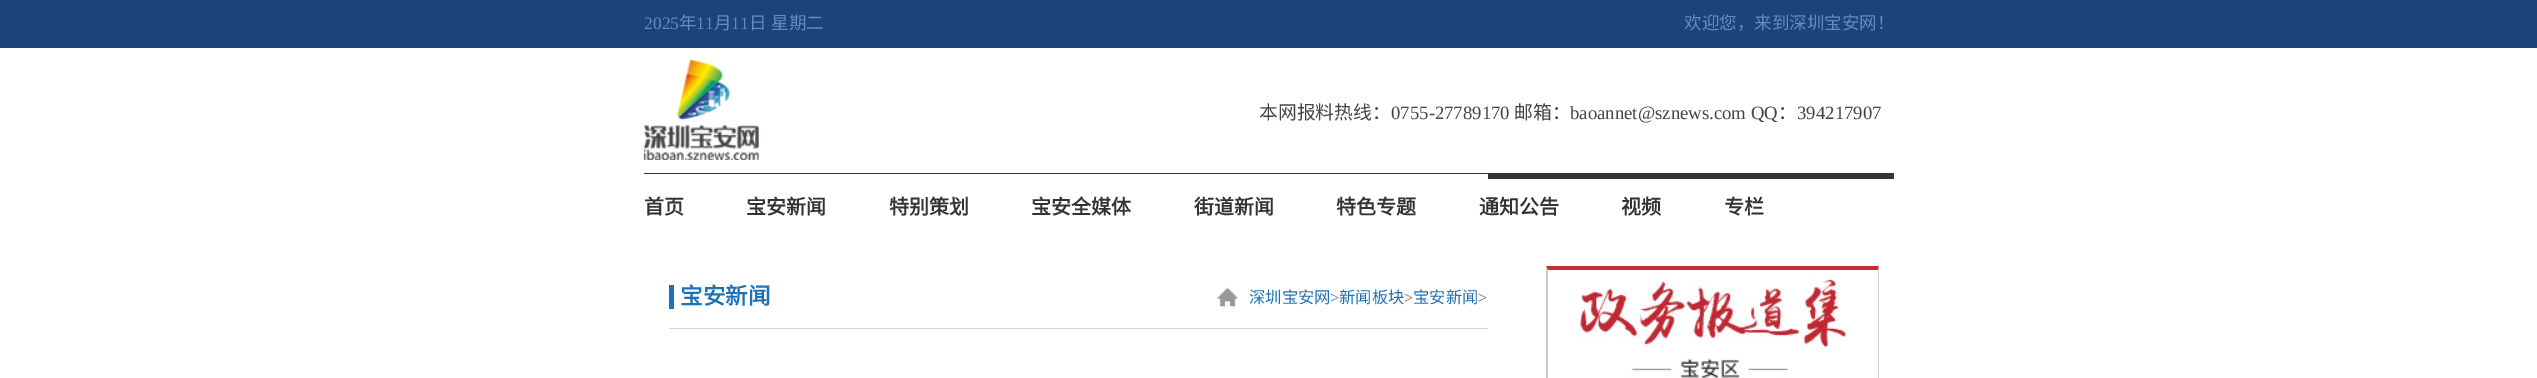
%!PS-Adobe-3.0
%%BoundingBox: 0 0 2537 378
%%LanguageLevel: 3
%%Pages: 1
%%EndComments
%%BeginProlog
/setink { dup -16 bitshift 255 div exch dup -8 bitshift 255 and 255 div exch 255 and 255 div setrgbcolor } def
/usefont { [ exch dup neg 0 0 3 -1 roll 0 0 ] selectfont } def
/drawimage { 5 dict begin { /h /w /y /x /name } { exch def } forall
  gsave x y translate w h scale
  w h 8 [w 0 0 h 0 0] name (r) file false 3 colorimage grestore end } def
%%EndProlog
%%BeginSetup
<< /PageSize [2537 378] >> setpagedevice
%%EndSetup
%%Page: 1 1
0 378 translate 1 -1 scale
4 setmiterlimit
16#FFFFFF setink
0 0 2537 378 rectfill
16#1C447A setink
0 0 2537 48 rectfill
/LiberationSerif-Regular 17.5 usefont
16#658BC0 setink
644 29 moveto (2025) show
/NotoSansCJKSC-Regular 17.5 usefont
679 29 moveto (年) show
/LiberationSerif-Regular 17.5 usefont
696 29 moveto (11) show
/NotoSansCJKSC-Regular 17.5 usefont
714 29 moveto (月) show
/LiberationSerif-Regular 17.5 usefont
731 29 moveto (11) show
/NotoSansCJKSC-Regular 17.5 usefont
[
    [(日) 749 29]
    [(星期二) 771 29]
    [(欢迎您，来到深圳宝安网！) 1684 29]
] { aload pop moveto show } forall
16#333333 setink
644 173 1250 1 rectfill
(img1.raw) 643 60 116 100 drawimage
/NotoSansCJKSC-Regular 18.75 usefont
16#464342 setink
1259 119 moveto (本网报料热线：) show
/LiberationSerif-Regular 18.75 usefont
1391 119 moveto (0755-27789170) show
/NotoSansCJKSC-Regular 18.75 usefont
1514 119 moveto (邮箱：) show
/LiberationSerif-Regular 18.75 usefont
1570 119 moveto (baoannet@sznews.com QQ) show
/NotoSansCJKSC-Regular 18.75 usefont
1778 119 moveto (：) show
/LiberationSerif-Regular 18.75 usefont
1797 119 moveto (394217907) show
16#333333 setink
1488 174 406 5 rectfill
/NotoSansCJKSC-Bold 20 usefont
[
    [(首页) 644 214]
    [(宝安新闻) 746 214]
    [(特别策划) 889 214]
    [(宝安全媒体) 1031 214]
    [(街道新闻) 1194 214]
    [(特色专题) 1336 214]
    [(通知公告) 1479 214]
    [(视频) 1621 214]
    [(专栏) 1724 214]
] { aload pop moveto show } forall
16#D6D6D6 setink
669 328 819 1 rectfill
16#1D71B7 setink
669 285 5 24 rectfill
/NotoSansCJKSC-Bold 22.5 usefont
680 304 moveto (宝安新闻) show
(img2.raw) 1217 287 21 20 drawimage
/NotoSansCJKSC-Regular 16.25 usefont
1249 303 moveto (深圳宝安网) show
/LiberationSerif-Regular 16.25 usefont
16#666666 setink
1330 303 moveto (>) show
/NotoSansCJKSC-Regular 16.25 usefont
16#1D71B7 setink
1339 303 moveto (新闻板块) show
/LiberationSerif-Regular 16.25 usefont
16#666666 setink
1404 303 moveto (>) show
/NotoSansCJKSC-Regular 16.25 usefont
16#1D71B7 setink
1413 303 moveto (宝安新闻) show
/LiberationSerif-Regular 16.25 usefont
16#666666 setink
1478 303 moveto (>) show
16#C42F31 setink
1546 266 moveto 1879 266 lineto 1878 270 lineto 1548 270 lineto closepath fill
16#CCCCCC setink
1879 266 moveto 1879 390 lineto 1878 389 lineto 1878 270 lineto closepath fill
1546 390 moveto 1546 266 lineto 1548 270 lineto 1548 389 lineto closepath fill
(img3.raw) 1580 278 267 100 drawimage
showpage
%%EOF
